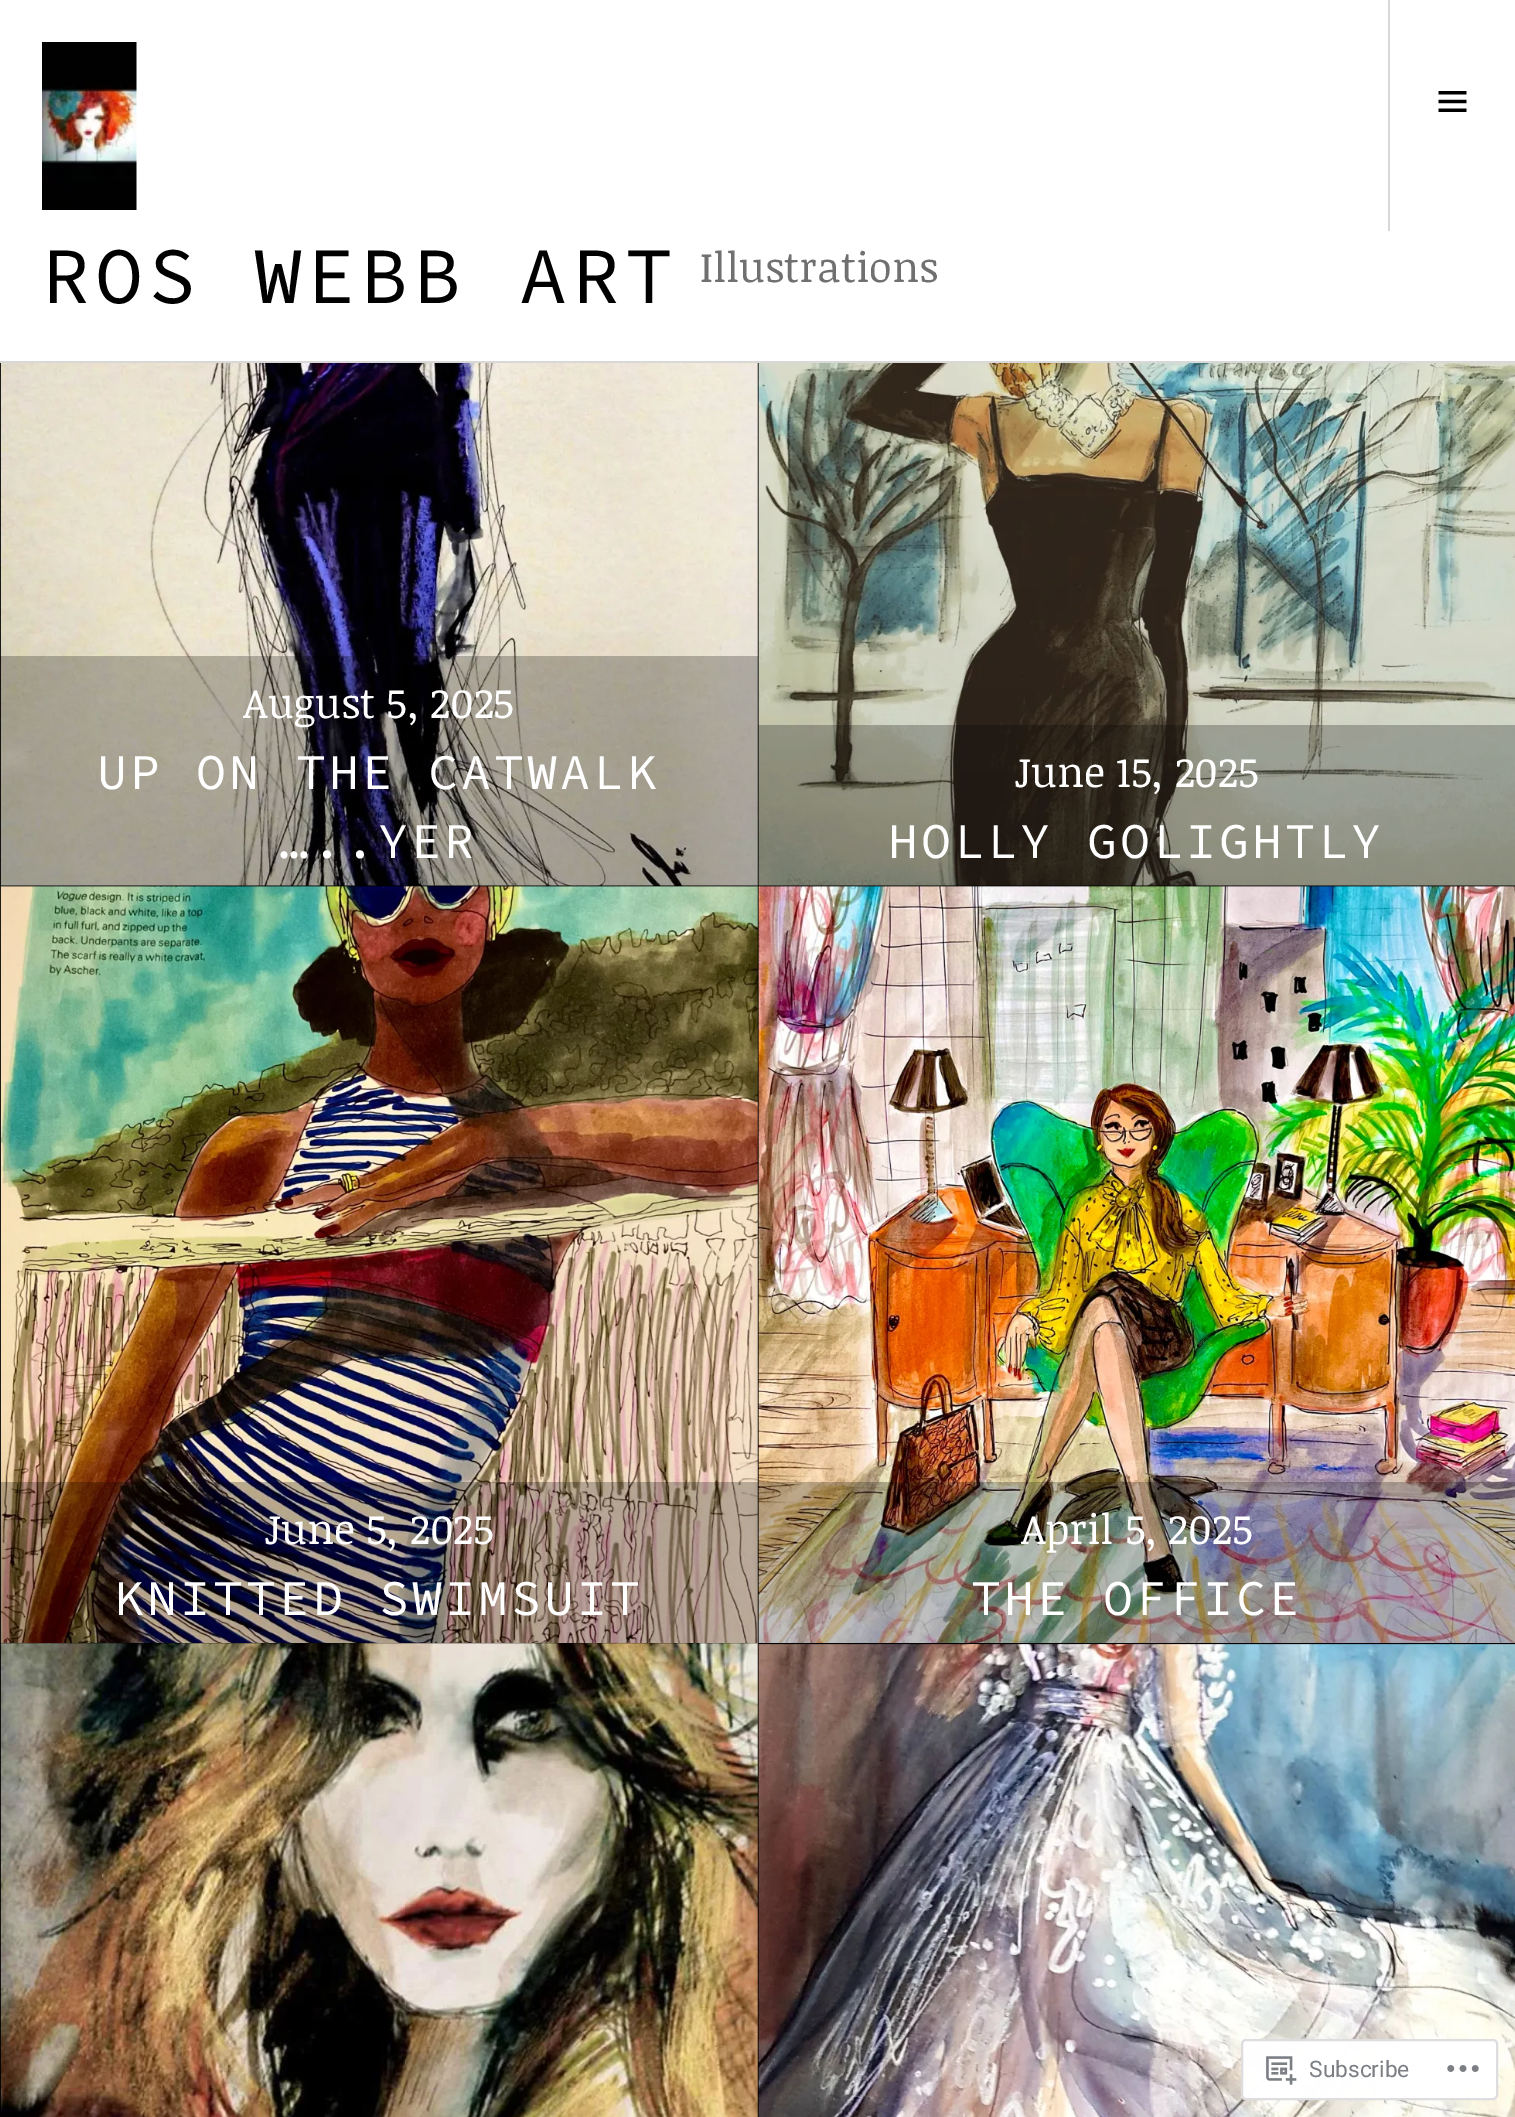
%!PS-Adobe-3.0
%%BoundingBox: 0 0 1515 2117
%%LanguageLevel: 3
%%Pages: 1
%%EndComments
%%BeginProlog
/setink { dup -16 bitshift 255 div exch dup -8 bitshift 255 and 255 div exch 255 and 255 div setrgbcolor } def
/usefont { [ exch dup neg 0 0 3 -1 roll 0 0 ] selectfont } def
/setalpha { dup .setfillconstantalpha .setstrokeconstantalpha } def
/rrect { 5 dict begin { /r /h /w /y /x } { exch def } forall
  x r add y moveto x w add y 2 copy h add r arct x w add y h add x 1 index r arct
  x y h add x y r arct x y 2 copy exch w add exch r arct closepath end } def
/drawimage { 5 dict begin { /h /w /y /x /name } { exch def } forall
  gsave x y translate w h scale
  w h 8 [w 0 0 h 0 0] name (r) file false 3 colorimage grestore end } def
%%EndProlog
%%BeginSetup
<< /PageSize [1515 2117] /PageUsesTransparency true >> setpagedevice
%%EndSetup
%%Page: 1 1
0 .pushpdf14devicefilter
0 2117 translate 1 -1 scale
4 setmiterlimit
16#000000 setink
0 0 1515 2117 rectfill
[
    [0 0 1515 361 16#FFFFFF]
    [0 361 1515 2 16#D8D8D8]
    [1388 0 2 231 16#D8D8D8]
] { aload pop setink rectfill } forall
(img1.raw) 1438 91 29 21 drawimage
(img2.raw) 42 42 95 168 drawimage
/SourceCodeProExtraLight-ExtraLight 80 usefont
16#000000 setink
42 303 moveto 5 0 (ROS WEBB ART) ashow
/NoticiaText-Regular 41.5 usefont
16#707070 setink
700 282 moveto (Illustrations) show
(img3.raw) 0 363 758 523 drawimage
0.25 setalpha
16#000000 setink
0 656 758 230 rectfill
1 setalpha
16#FFFFFF setink
243 718 moveto (August 5, 2025) show
/SourceCodeProExtraLight-ExtraLight 50 usefont
97 789 moveto 3.1 0 (UP ON THE CATWALK) ashow
279 858 moveto 3.1 0 (…..YER) ashow
(img4.raw) 758 363 757 523 drawimage
0.25 setalpha
16#000000 setink
758 725 757 161 rectfill
/NoticiaText-Regular 41.5 usefont
1 setalpha
16#FFFFFF setink
1014 787 moveto (June 15, 2025) show
/SourceCodeProExtraLight-ExtraLight 50 usefont
888 858 moveto 3.1 0 (HOLLY GOLIGHTLY) ashow
(img5.raw) 0 886 758 757 drawimage
0.25 setalpha
16#000000 setink
0 1482 758 161 rectfill
/NoticiaText-Regular 41.5 usefont
1 setalpha
16#FFFFFF setink
264 1544 moveto (June 5, 2025) show
/SourceCodeProExtraLight-ExtraLight 50 usefont
114 1615 moveto 3.1 0 (KNITTED SWIMSUIT) ashow
(img6.raw) 758 886 757 757 drawimage
0.25 setalpha
16#000000 setink
758 1482 757 161 rectfill
/NoticiaText-Regular 41.5 usefont
1 setalpha
16#FFFFFF setink
1021 1544 moveto (April 5, 2025) show
/SourceCodeProExtraLight-ExtraLight 50 usefont
971 1615 moveto 3.1 0 (THE OFFICE) ashow
(img7.raw) 0 1643 758 474 drawimage
(img8.raw) 758 1644 757 473 drawimage
0.98 setalpha
1241 2039 257 61 5 rrect fill
16#DCDCDE setink
2 setlinewidth
1242 2040 255 59 4 rrect stroke
1 setalpha
(img9.raw) 1266 2056 31 29 drawimage
/Roboto-Regular 22.75 usefont
16#7B7F84 setink
1309 2077 moveto (Subscribe) show
(img10.raw) 1447 2065 32 7 drawimage
.poppdf14devicefilter showpage
%%EOF
